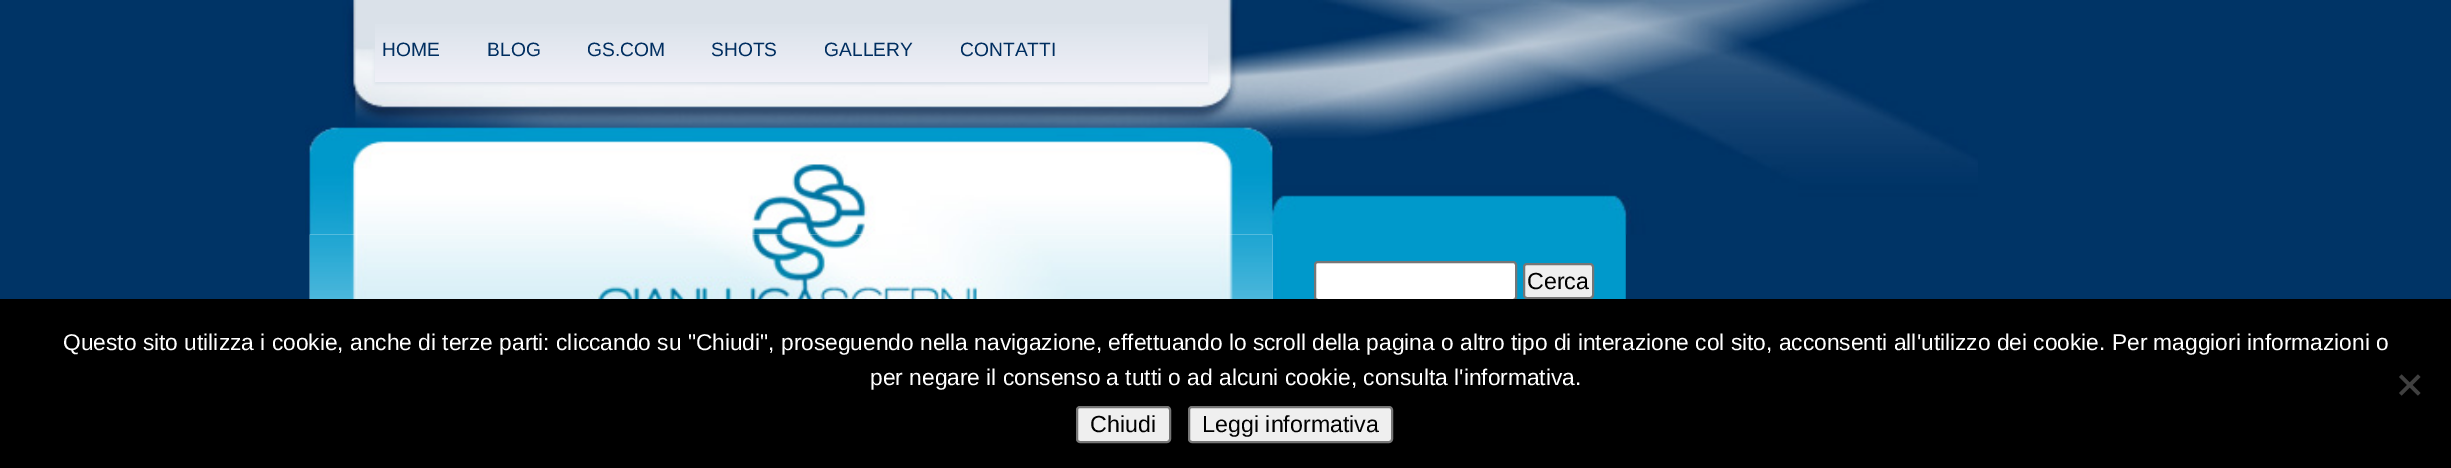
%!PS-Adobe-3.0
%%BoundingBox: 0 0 2451 468
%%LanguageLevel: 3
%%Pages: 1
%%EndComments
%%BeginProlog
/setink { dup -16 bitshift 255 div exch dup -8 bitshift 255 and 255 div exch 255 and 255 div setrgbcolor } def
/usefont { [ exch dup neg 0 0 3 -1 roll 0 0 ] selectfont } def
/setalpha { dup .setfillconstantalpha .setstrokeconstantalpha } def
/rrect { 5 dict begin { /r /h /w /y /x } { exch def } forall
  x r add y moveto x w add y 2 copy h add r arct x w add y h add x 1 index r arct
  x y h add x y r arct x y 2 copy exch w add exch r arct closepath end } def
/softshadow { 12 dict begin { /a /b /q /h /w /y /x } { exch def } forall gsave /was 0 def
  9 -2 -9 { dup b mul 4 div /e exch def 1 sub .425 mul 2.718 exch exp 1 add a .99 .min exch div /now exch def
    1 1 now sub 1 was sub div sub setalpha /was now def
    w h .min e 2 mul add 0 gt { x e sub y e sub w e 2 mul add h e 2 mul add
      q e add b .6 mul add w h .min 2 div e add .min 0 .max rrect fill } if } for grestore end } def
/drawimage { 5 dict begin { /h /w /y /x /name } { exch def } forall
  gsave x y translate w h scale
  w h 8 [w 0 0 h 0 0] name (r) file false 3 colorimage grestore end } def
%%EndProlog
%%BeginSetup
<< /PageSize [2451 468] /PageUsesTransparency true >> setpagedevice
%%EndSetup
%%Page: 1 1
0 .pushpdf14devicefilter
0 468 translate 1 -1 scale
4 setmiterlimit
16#003466 setink
0 0 2451 468 rectfill
(img1.raw) 309 234 1317 65 drawimage
(img2.raw) 305 0 1673 235 drawimage
16#DAE1E9 setink
375 19 833 65 0 2 1 softshadow
gsave 375 24 moveto 1208 24 lineto 1208 82 lineto 375 82 lineto closepath clip newpath
<< /ShadingType 2 /ColorSpace /DeviceRGB /Coords [791 17 791 82] /Extend [true true] /Function << /FunctionType 2 /Domain [0 1] /C0 [0.855 0.882 0.914] /C1 [0.941 0.941 0.973] /N 1 >> >> shfill grestore
/LiberationSans-Regular 19.25 usefont
16#002E60 setink
[
    [(HOME) 382 56]
    [(BLOG) 487 56]
    [(GS.COM) 587 56]
    [(SHOTS) 711 56]
    [(GALLERY) 824 56]
    [(CONTATTI) 960 56]
] { aload pop moveto show } forall
(img3.raw) 309 234 964 65 drawimage
16#FFFFFF setink
1315 262 201 38 3 rrect gsave fill grestore
16#767676 setink
2 setlinewidth
stroke
16#EFEFEF setink
1524 264 69 34 3 rrect gsave fill grestore
16#767676 setink
stroke
/LiberationSans-Regular 23.25 usefont
16#000000 setink
1527 289 moveto (Cerca) show
0 299 2451 169 rectfill
/LiberationSans-Regular 22.75 usefont
16#FFFFFF setink
63 350 moveto (Questo sito utilizza i cookie, anche di terze parti: cliccando su "Chiudi", proseguendo nella navigazione, effettuando lo scroll della pagina o altro tipo di interazione col sito, acconsenti all'utilizzo dei cookie. Per maggiori informazioni o) show
870 385 moveto (per negare il consenso a tutti o ad alcuni cookie, consulta l'informativa.) show
16#404040 setink
2418 374.5 moveto 2420.5 377 lineto 2401.5 395.5 lineto 2399 393 lineto closepath fill
2399 377 moveto 2401.5 374.5 lineto 2420.5 393 lineto 2418 395.5 lineto closepath fill
16#EFEFEF setink
1077 407 93 35 3 rrect gsave fill grestore
16#767676 setink
stroke
/LiberationSans-Regular 23.25 usefont
16#000000 setink
1090 432 moveto (Chiudi) show
16#EFEFEF setink
1189 407 203 35 3 rrect gsave fill grestore
16#767676 setink
stroke
16#000000 setink
1202 432 moveto (Leggi informativa) show
.poppdf14devicefilter showpage
%%EOF
